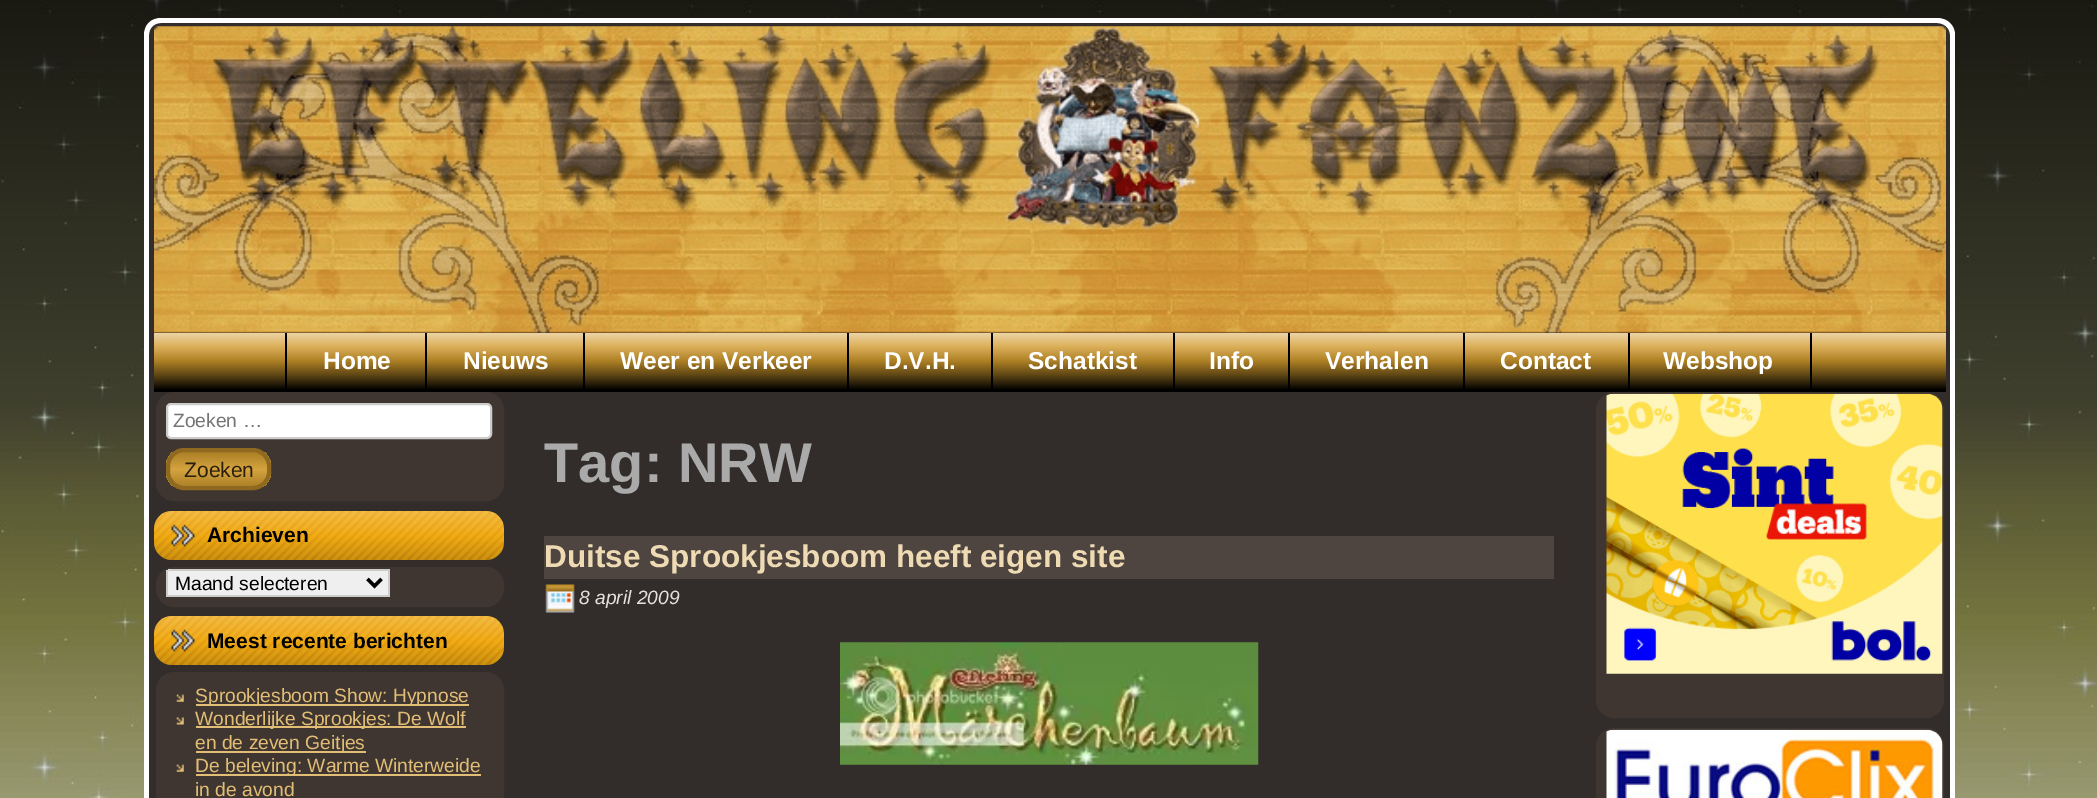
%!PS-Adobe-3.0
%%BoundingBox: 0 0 2097 798
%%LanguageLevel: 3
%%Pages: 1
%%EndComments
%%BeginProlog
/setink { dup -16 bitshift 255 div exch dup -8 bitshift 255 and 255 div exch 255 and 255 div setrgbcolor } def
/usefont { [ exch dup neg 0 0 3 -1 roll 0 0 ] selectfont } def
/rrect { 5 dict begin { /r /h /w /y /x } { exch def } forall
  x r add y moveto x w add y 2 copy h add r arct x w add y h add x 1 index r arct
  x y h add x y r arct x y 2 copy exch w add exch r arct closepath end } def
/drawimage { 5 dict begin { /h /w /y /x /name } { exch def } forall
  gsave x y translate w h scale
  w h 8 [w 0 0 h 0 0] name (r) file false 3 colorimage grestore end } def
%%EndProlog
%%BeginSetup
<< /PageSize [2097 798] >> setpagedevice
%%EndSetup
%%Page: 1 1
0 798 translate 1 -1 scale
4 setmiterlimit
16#FFFFFF setink
0 0 2097 798 rectfill
(img1.raw) 0 0 2097 798 drawimage
16#322D2A setink
162 18 moveto 1937 18 lineto 1947 18 1955 26 1955 36 curveto 1955 392 lineto 144 392 lineto 144 36 lineto 144 26 152 18 162 18 curveto closepath fill
16#FFFFFF setink
161 18 moveto 1937 18 lineto 1947 18 1955 25 1955 35 curveto 1955 392 lineto 144 392 lineto 144 35 lineto 144 25 151 18 161 18 curveto closepath 161 23 moveto 1937 23 lineto 1944 23 1950 28 1950 35 curveto 1950 392 lineto 149 392 lineto 149 35 lineto 149 28 154 23 161 23 curveto closepath eofill
(img2.raw) 154 26 1792 307 drawimage
gsave 154 333 moveto 1946 333 lineto 1946 390 lineto 154 390 lineto closepath clip newpath
<< /ShadingType 2 /ColorSpace /DeviceRGB /Coords [1050 332 1050 390] /Extend [true true] /Function << /FunctionType 3 /Domain [0 1] /Functions [<< /FunctionType 2 /Domain [0 1] /C0 [0.929 0.843 0.671] /C1 [0.863 0.69 0.353] /N 1 >> << /FunctionType 2 /Domain [0 1] /C0 [0.863 0.69 0.353] /C1 [0.678 0.502 0.145] /N 1 >> << /FunctionType 2 /Domain [0 1] /C0 [0.678 0.502 0.145] /C1 [0.361 0.267 0.078] /N 1 >> << /FunctionType 2 /Domain [0 1] /C0 [0.361 0.267 0.078] /C1 [0 0 0] /N 1 >>] /Bounds [0.25 0.5 0.75] /Encode [0 1 0 1 0 1 0 1] >> >> shfill grestore
[
    [154 390 1792 2 16#000000]
    [425 333 2 57 16#000000]
    [285 333 2 57 16#000000]
] { aload pop setink rectfill } forall
/LiberationSans-Bold 24.5 usefont
16#FFFFFF setink
323 369 moveto (Home) show
16#000000 setink
583 333 2 57 rectfill
16#FFFFFF setink
463 369 moveto (Nieuws) show
16#000000 setink
847 333 2 57 rectfill
16#FFFFFF setink
620 369 moveto (Weer en Verkeer) show
16#000000 setink
991 333 2 57 rectfill
16#FFFFFF setink
884 369 moveto (D.V.H.) show
16#000000 setink
1173 333 2 57 rectfill
16#FFFFFF setink
1028 369 moveto (Schatkist) show
16#000000 setink
1288 333 2 57 rectfill
16#FFFFFF setink
1209 369 moveto (Info) show
16#000000 setink
1463 333 2 57 rectfill
16#FFFFFF setink
1325 369 moveto (Verhalen) show
16#000000 setink
1628 333 2 57 rectfill
16#FFFFFF setink
1500 369 moveto (Contact) show
16#000000 setink
1810 333 2 57 rectfill
16#FFFFFF setink
1663 369 moveto (Webshop) show
16#322D2A setink
149 392 1801 406 rectfill
16#FFFFFF setink
144 392 moveto 1955 392 lineto 1955 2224 lineto 1955 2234 1947 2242 1937 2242 curveto 161 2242 lineto 151 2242 144 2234 144 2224 curveto closepath 149 392 moveto 1950 392 lineto 1950 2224 lineto 1950 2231 1944 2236 1937 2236 curveto 161 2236 lineto 154 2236 149 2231 149 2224 curveto closepath eofill
16#3F3631 setink
157 393 346 107 17 rrect gsave fill grestore
2 setlinewidth
stroke
16#FFFFFF setink
167 404 324 34 4 rrect gsave fill grestore
16#CCCCCC setink
stroke
/LiberationSans-Regular 19.25 usefont
16#757575 setink
173 427 moveto (Zoeken …) show
gsave
166 448 105 42 18 rrect clip newpath
gsave 166 452 moveto 271 452 lineto 271 487 lineto 166 487 lineto closepath clip newpath
<< /ShadingType 2 /ColorSpace /DeviceRGB /Coords [219 452 219 487] /Extend [true true] /Function << /FunctionType 3 /Domain [0 1] /Functions [<< /FunctionType 2 /Domain [0 1] /C0 [0.675 0.498 0.145] /C1 [0.835 0.643 0.251] /N 1 >> << /FunctionType 2 /Domain [0 1] /C0 [0.835 0.643 0.251] /C1 [0.675 0.498 0.145] /N 1 >>] /Bounds [0.5] /Encode [0 1 0 1] >> >> shfill grestore
grestore
16#8F691F setink
4 setlinewidth
168 450 101 38 16 rrect stroke
/LiberationSans-Regular 21 usefont
16#291F0C setink
184 477 moveto (Zoeken) show
(img3.raw) 154 511 350 49 drawimage
/LiberationSans-Bold 21 usefont
16#000000 setink
207 542 moveto (Archieven) show
16#3F3631 setink
157 568 346 38 17 rrect gsave fill grestore
2 setlinewidth
stroke
gsave
158 569 344 37 16 rrect clip newpath
16#EFEFEF setink
166 569 222 26 rectfill
grestore
16#CCCCCC setink
174 569 moveto 171 569 168 570 166 571 curveto 166 597 lineto 390 597 lineto 390 569 lineto closepath 168 571 moveto 168 595 lineto 388 595 lineto 388 571 lineto closepath eofill
16#000000 setink
3.5 setlinewidth
367.5 579 moveto 374.5 586 lineto 381.5 579 lineto stroke
/LiberationSans-Regular 19.25 usefont
175 590 moveto (Maand selecteren) show
(img3.raw) 154 616 350 49 drawimage
/LiberationSans-Bold 21 usefont
207 648 moveto (Meest recente berichten) show
16#3F3631 setink
157 673 346 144 17 rrect gsave fill grestore
2 setlinewidth
stroke
(img4.raw) 176 694 8 8 drawimage
16#E1BD75 setink
196 704 273 2 rectfill
/LiberationSans-Regular 19.25 usefont
195 702 moveto (Sprookjesboom Show: Hypnose) show
(img5.raw) 176 717 8 8 drawimage
196 726 270 2 rectfill
195 725 moveto (Wonderlijke Sprookjes: De Wolf) show
196 751 170 2 rectfill
195 749 moveto (en de zeven Geitjes) show
(img4.raw) 176 764 8 8 drawimage
196 774 285 2 rectfill
195 772 moveto (De beleving: Warme Winterweide) show
195 796 moveto (in de avond) show
/LiberationSans-Bold 56 usefont
16#AAAAAA setink
544 482 moveto (Tag: NRW) show
16#4E4541 setink
544 536 1010 43 rectfill
/LiberationSans-Bold 31.5 usefont
16#EFDBB3 setink
544 567 moveto (Duitse Sprookjesboom heeft eigen site) show
(img6.raw) 545 584 30 29 drawimage
/LiberationSans-Italic 19.25 usefont
16#E2E1DF setink
579 604 moveto (8 april 2009) show
(img7.raw) 840 642 419 123 drawimage
16#3F3631 setink
1597 393 346 324 17 rrect gsave fill grestore
stroke
(img8.raw) 1606 393 337 281 drawimage
1597 729 346 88 17 rrect gsave fill grestore
stroke
(img9.raw) 1606 729 337 69 drawimage
showpage
%%EOF
